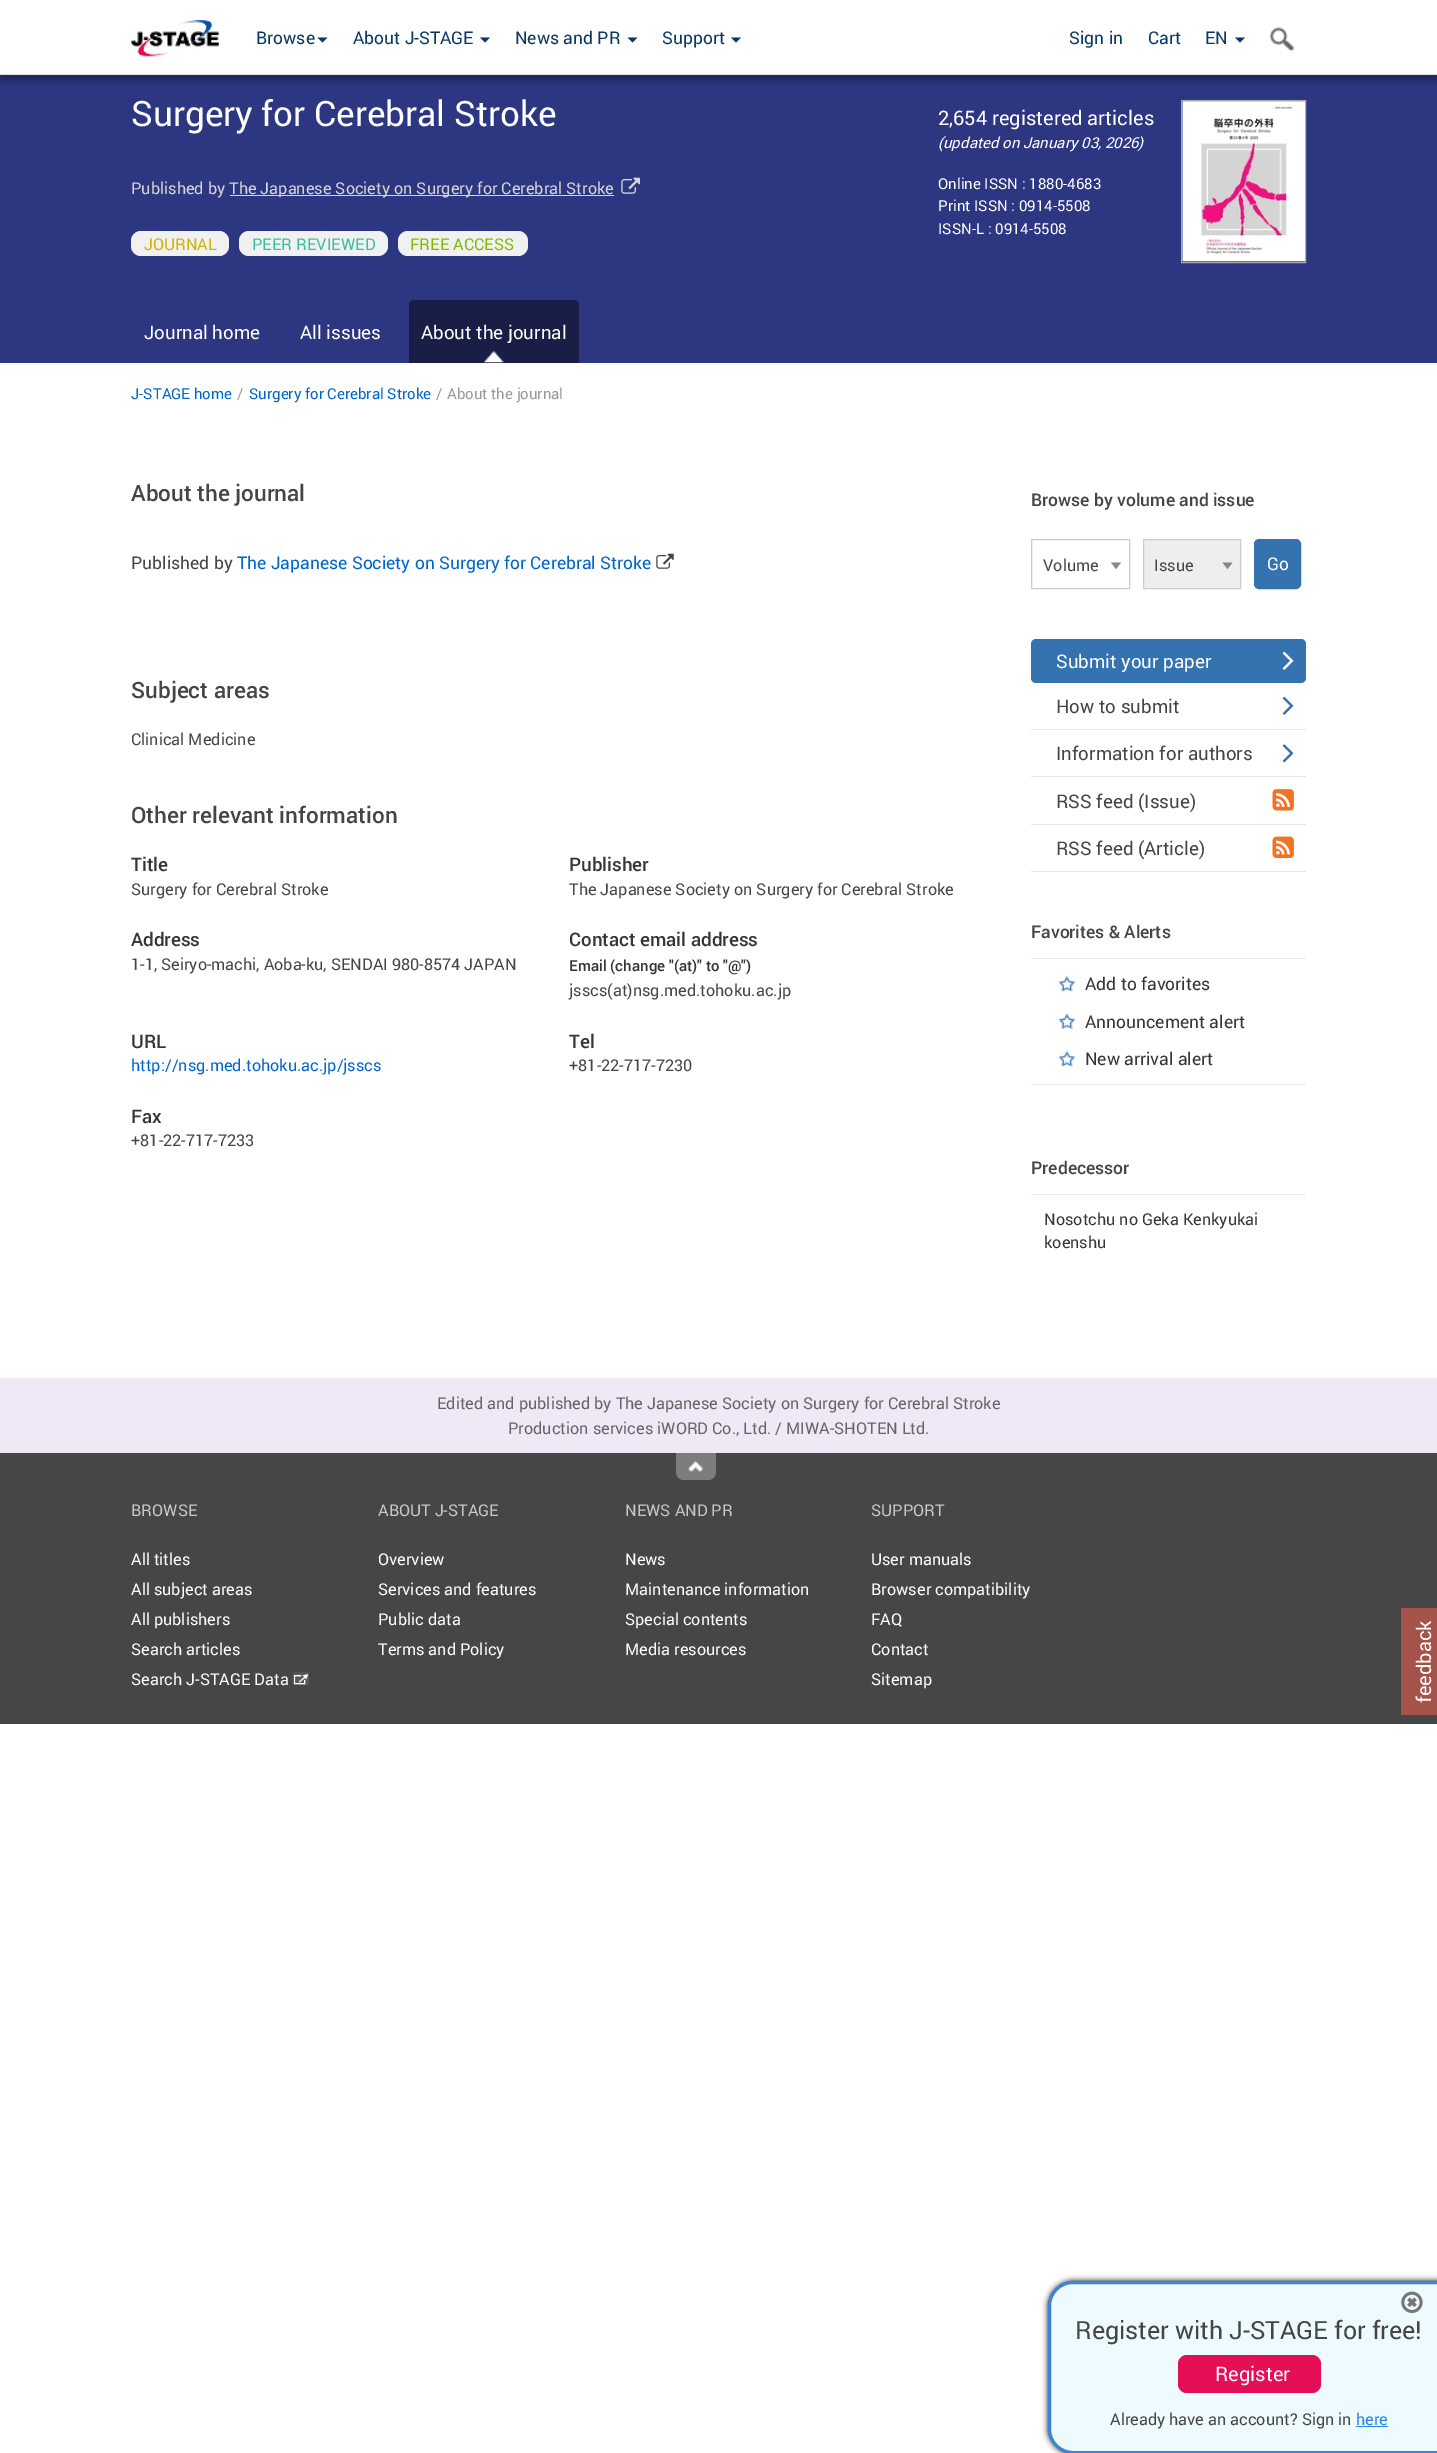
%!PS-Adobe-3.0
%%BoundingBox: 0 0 1437 2453
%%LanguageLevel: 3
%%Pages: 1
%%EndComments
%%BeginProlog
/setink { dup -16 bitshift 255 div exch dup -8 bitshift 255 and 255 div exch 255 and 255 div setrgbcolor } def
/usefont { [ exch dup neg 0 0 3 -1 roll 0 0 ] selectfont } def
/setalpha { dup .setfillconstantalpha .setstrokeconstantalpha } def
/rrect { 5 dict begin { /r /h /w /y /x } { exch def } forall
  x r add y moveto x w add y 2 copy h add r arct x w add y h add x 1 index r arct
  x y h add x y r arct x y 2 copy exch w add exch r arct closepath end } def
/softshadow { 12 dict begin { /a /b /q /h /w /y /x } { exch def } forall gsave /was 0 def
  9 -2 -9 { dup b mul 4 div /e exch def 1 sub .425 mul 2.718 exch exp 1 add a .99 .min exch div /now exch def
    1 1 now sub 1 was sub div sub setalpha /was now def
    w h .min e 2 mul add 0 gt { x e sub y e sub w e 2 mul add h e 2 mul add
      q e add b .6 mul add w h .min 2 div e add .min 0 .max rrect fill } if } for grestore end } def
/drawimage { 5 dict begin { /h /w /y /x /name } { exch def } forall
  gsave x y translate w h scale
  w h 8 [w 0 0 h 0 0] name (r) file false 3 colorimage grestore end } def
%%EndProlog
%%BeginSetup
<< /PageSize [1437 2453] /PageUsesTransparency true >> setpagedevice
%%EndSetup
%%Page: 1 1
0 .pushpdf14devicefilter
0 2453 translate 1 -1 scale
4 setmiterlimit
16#FFFFFF setink
0 0 1437 2453 rectfill
16#2D3680 setink
0 75 1437 288 rectfill
gsave
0 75 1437 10 rectclip
16#000000 setink
0 6 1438 75 0 3 0.3 softshadow
grestore
16#E0E0E0 setink
0 74 1437 1 rectfill
(img1.raw) 131 20 88 37 drawimage
/Roboto-Regular 17.5 usefont
16#093963 setink
256 44 moveto (Browse) show
317.5 37.5 moveto 327.5 37.5 lineto 322.5 42.5 lineto closepath fill
353 44 moveto (About J-STAGE) show
480 37.5 moveto 490 37.5 lineto 485 42.5 lineto closepath fill
515 44 moveto (News and PR) show
627.5 37.5 moveto 637.5 37.5 lineto 632.5 42.5 lineto closepath fill
662 44 moveto (Support) show
731 37.5 moveto 741 37.5 lineto 736 42.5 lineto closepath fill
[
    [(Sign in) 1069 44]
    [(Cart) 1148 44]
    [(EN) 1205 44]
] { aload pop moveto show } forall
1235 37.5 moveto 1245 37.5 lineto 1240 42.5 lineto closepath fill
(img2.raw) 1270 27 24 25 drawimage
/Roboto-Regular 35 usefont
16#FFFFFF setink
131 126 moveto (Surgery for Cerebral Stroke) show
/Roboto-Regular 20 usefont
938 125 moveto (2,654 registered articles) show
/Roboto-Italic 15 usefont
938 148 moveto (\(updated on January 03, 2026\)) show
/Roboto-Regular 15 usefont
[
    [(Online ISSN : 1880-4683) 938 189]
    [(Print ISSN : 0914-5508) 938 211]
    [(ISSN-L : 0914-5508) 938 234]
] { aload pop moveto show } forall
16#AEAEAE setink
1181.5 100.5 124 162 rectstroke
(img3.raw) 1182 101 123 161 drawimage
/Roboto-Regular 16.25 usefont
16#D6D6D6 setink
131 194 moveto (Published by) show
230 195 384 1 rectfill
229 194 moveto (The Japanese Society on Surgery for Cerebral Stroke) show
(img4.raw) 621 177 19 17 drawimage
16#F1F1F1 setink
131 231 98 25 10 rrect fill
16#CEB301 setink
144 250 moveto (JOURNAL) show
16#F1F1F1 setink
239 231 149 25 10 rrect fill
16#3BBDA0 setink
252 250 moveto (PEER REVIEWED) show
16#F1F1F1 setink
398 231 130 25 10 rrect fill
16#7FBA00 setink
410 250 moveto (FREE ACCESS) show
/Roboto-Regular 18.75 usefont
16#FFFFFF setink
144 339 moveto (Journal home) show
300 339 moveto (All issues) show
16#191E46 setink
414 300 moveto 574 300 lineto 577 300 579 302 579 305 curveto 579 363 lineto 409 363 lineto 409 305 lineto 409 302 411 300 414 300 curveto closepath fill
(img5.raw) 483 351 21 12 drawimage
16#FFFFFF setink
421 339 moveto (About the journal) show
/Roboto-Regular 15 usefont
16#0066CC setink
131 399 moveto (J-STAGE home) show
16#999999 setink
237 399 moveto (/) show
16#0066CC setink
249 399 moveto (Surgery for Cerebral Stroke) show
16#999999 setink
436 399 moveto (/) show
447 399 moveto (About the journal) show
/Roboto-Medium 22.5 usefont
16#454545 setink
131 501 moveto (About the journal) show
/Roboto-Regular 17.5 usefont
131 569 moveto (Published by) show
16#0066CC setink
237 569 moveto (The Japanese Society on Surgery for Cerebral Stroke) show
(img6.raw) 656 553 18 16 drawimage
/Roboto-Medium 22.5 usefont
16#454545 setink
131 698 moveto (Subject areas) show
/Roboto-Regular 16.25 usefont
131 745 moveto (Clinical Medicine) show
/Roboto-Medium 22.5 usefont
131 823 moveto (Other relevant information) show
/Roboto-Medium 18.75 usefont
16#363636 setink
131 871 moveto (Title) show
/Roboto-Regular 16.25 usefont
16#454545 setink
131 895 moveto (Surgery for Cerebral Stroke) show
/Roboto-Medium 18.75 usefont
16#363636 setink
569 871 moveto (Publisher) show
/Roboto-Regular 16.25 usefont
16#454545 setink
569 895 moveto (The Japanese Society on Surgery for Cerebral Stroke) show
/Roboto-Medium 18.75 usefont
16#363636 setink
131 946 moveto (Address) show
/Roboto-Regular 16.25 usefont
16#454545 setink
131 970 moveto (1-1, Seiryo-machi, Aoba-ku, SENDAI 980-8574 JAPAN) show
/Roboto-Medium 18.75 usefont
16#363636 setink
569 946 moveto (Contact email address) show
/Roboto-Medium 15 usefont
569 971 moveto (Email \(change "\(at\)" to "@"\)) show
/Roboto-Regular 16.25 usefont
16#454545 setink
569 996 moveto (jsscs\(at\)nsg.med.tohoku.ac.jp) show
/Roboto-Medium 18.75 usefont
16#363636 setink
131 1048 moveto (URL) show
/Roboto-Regular 16.25 usefont
16#0066CC setink
131 1071 moveto (http://nsg.med.tohoku.ac.jp/jsscs) show
/Roboto-Medium 18.75 usefont
16#363636 setink
569 1048 moveto (Tel) show
/Roboto-Regular 16.25 usefont
16#454545 setink
569 1071 moveto (+81-22-717-7230) show
/Roboto-Medium 18.75 usefont
16#363636 setink
131 1123 moveto (Fax) show
/Roboto-Regular 16.25 usefont
16#454545 setink
131 1146 moveto (+81-22-717-7233) show
/Roboto-Medium 17.5 usefont
1031 506 moveto (Browse by volume and issue) show
16#CCCCCC setink
1031.5 539.5 98 49 rectstroke
/Roboto-Regular 16.25 usefont
16#454545 setink
1043 571 moveto (Volume) show
16#888888 setink
1111 562.5 moveto 1121 562.5 lineto 1116 569 lineto closepath fill
16#EEEEEE setink
1143.5 539.5 moveto 1240.5 539.5 lineto 1240.5 588.5 lineto 1143.5 588.5 lineto closepath gsave fill grestore
16#CCCCCC setink
stroke
16#454545 setink
1154 571 moveto (Issue) show
16#888888 setink
1222.5 562.5 moveto 1232.5 562.5 lineto 1227.5 569 lineto closepath fill
16#3572B0 setink
1254.5 539.5 46 49 4.5 rrect gsave fill grestore
stroke
/Roboto-Regular 17.5 usefont
16#FFFFFF setink
1267 570 moveto (Go) show
16#3572B0 setink
1031 639 275 44 5 rrect fill
/Roboto-Regular 18.75 usefont
16#FFFFFF setink
1056 668 moveto (Submit your paper) show
(img7.raw) 1282 651 12 19 drawimage
16#454545 setink
1056 713 moveto (How to submit) show
(img8.raw) 1282 696 12 19 drawimage
16#E6E6E6 setink
1031 729 275 1 rectfill
16#454545 setink
1056 760 moveto (Information for authors) show
(img9.raw) 1282 744 12 19 drawimage
16#E6E6E6 setink
1031 776 275 1 rectfill
16#454545 setink
1056 808 moveto (RSS feed \(Issue\)) show
(img10.raw) 1272 789 22 22 drawimage
16#E6E6E6 setink
1031 824 275 1 rectfill
16#454545 setink
1056 855 moveto (RSS feed \(Article\)) show
(img11.raw) 1272 836 22 23 drawimage
16#E6E6E6 setink
1031 871 275 1 rectfill
16#EBEBEB setink
1031 958 275 1 rectfill
/Roboto-Medium 17.5 usefont
16#454545 setink
1031 938 moveto (Favorites & Alerts) show
16#EBEBEB setink
1031 1084 275 1 rectfill
(img12.raw) 1058 976 17 16 drawimage
/Roboto-Regular 17.5 usefont
16#363636 setink
1085 990 moveto (Add to favorites) show
(img13.raw) 1058 1013 17 16 drawimage
1085 1028 moveto (Announcement alert) show
(img12.raw) 1058 1051 17 16 drawimage
1085 1065 moveto (New arrival alert) show
16#EBEBEB setink
1031 1194 275 1 rectfill
/Roboto-Medium 17.5 usefont
16#454545 setink
1031 1174 moveto (Predecessor) show
/Roboto-Regular 16.25 usefont
16#363636 setink
1044 1225 moveto (Nosotchu no Geka Kenkyukai) show
1044 1248 moveto (koenshu) show
16#EEE8F7 setink
0 1378 1437 75 rectfill
16#656565 setink
437 1409 moveto (Edited and published by The Japanese Society on Surgery for Cerebral Stroke) show
508 1434 moveto (Production services iWORD Co., Ltd. / MIWA-SHOTEN Ltd.) show
16#464646 setink
0 1453 1437 271 rectfill
16#7D7D7D setink
676 1453 moveto 716 1453 lineto 716 1472 lineto 716 1476.5 712.5 1480 708 1480 curveto 684 1480 lineto 679.5 1480 676 1476.5 676 1472 curveto closepath fill
(img14.raw) 688 1461 15 11 drawimage
16#C8C8C8 setink
131 1516 moveto (BROWSE) show
16#FFFFFF setink
[
    [(All titles) 131 1565]
    [(All subject areas) 131 1595]
    [(All publishers) 131 1625]
    [(Search articles) 131 1655]
    [(Search J-STAGE Data) 131 1685]
] { aload pop moveto show } forall
(img15.raw) 292 1672 17 13 drawimage
16#C8C8C8 setink
378 1516 moveto (ABOUT J-STAGE) show
16#FFFFFF setink
[
    [(Overview) 378 1565]
    [(Services and features) 378 1595]
    [(Public data) 378 1625]
    [(Terms and Policy) 378 1655]
] { aload pop moveto show } forall
16#C8C8C8 setink
625 1516 moveto (NEWS AND PR) show
16#FFFFFF setink
[
    [(News) 625 1565]
    [(Maintenance information) 625 1595]
    [(Special contents) 625 1625]
    [(Media resources) 625 1655]
] { aload pop moveto show } forall
16#C8C8C8 setink
871 1516 moveto (SUPPORT) show
16#FFFFFF setink
[
    [(User manuals) 871 1565]
    [(Browser compatibility) 871 1595]
    [(FAQ) 871 1625]
    [(Contact) 871 1655]
    [(Sitemap) 871 1685]
] { aload pop moveto show } forall
16#A5524B setink
1401 1608 36 107 rectfill
/Roboto-Regular 20 usefont
16#FFFFFF setink
gsave 1431 1703 translate -90 rotate 0 0 moveto (feedback) show grestore
16#000000 setink
1048 2281 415 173 25 3 1 softshadow
16#EEFBFE setink
1049.5 2282.5 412 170 23.5 rrect gsave fill grestore
16#3D84D1 setink
3 setlinewidth
stroke
(img16.raw) 1401 2291 22 22 drawimage
/Roboto-Regular 25 usefont
16#454545 setink
1075 2339 moveto (Register with J-STAGE for free!) show
16#E50F58 setink
1178 2355 143 38 9 rrect fill
/Roboto-Regular 20 usefont
16#FFFFFF setink
1215 2381 moveto (Register) show
/Roboto-Regular 16.25 usefont
16#454545 setink
1110 2425 moveto (Already have an account? Sign in) show
16#2A85E8 setink
1356 2425 moveto (here) show
1356 2426 32 1 rectfill
.poppdf14devicefilter showpage
%%EOF
